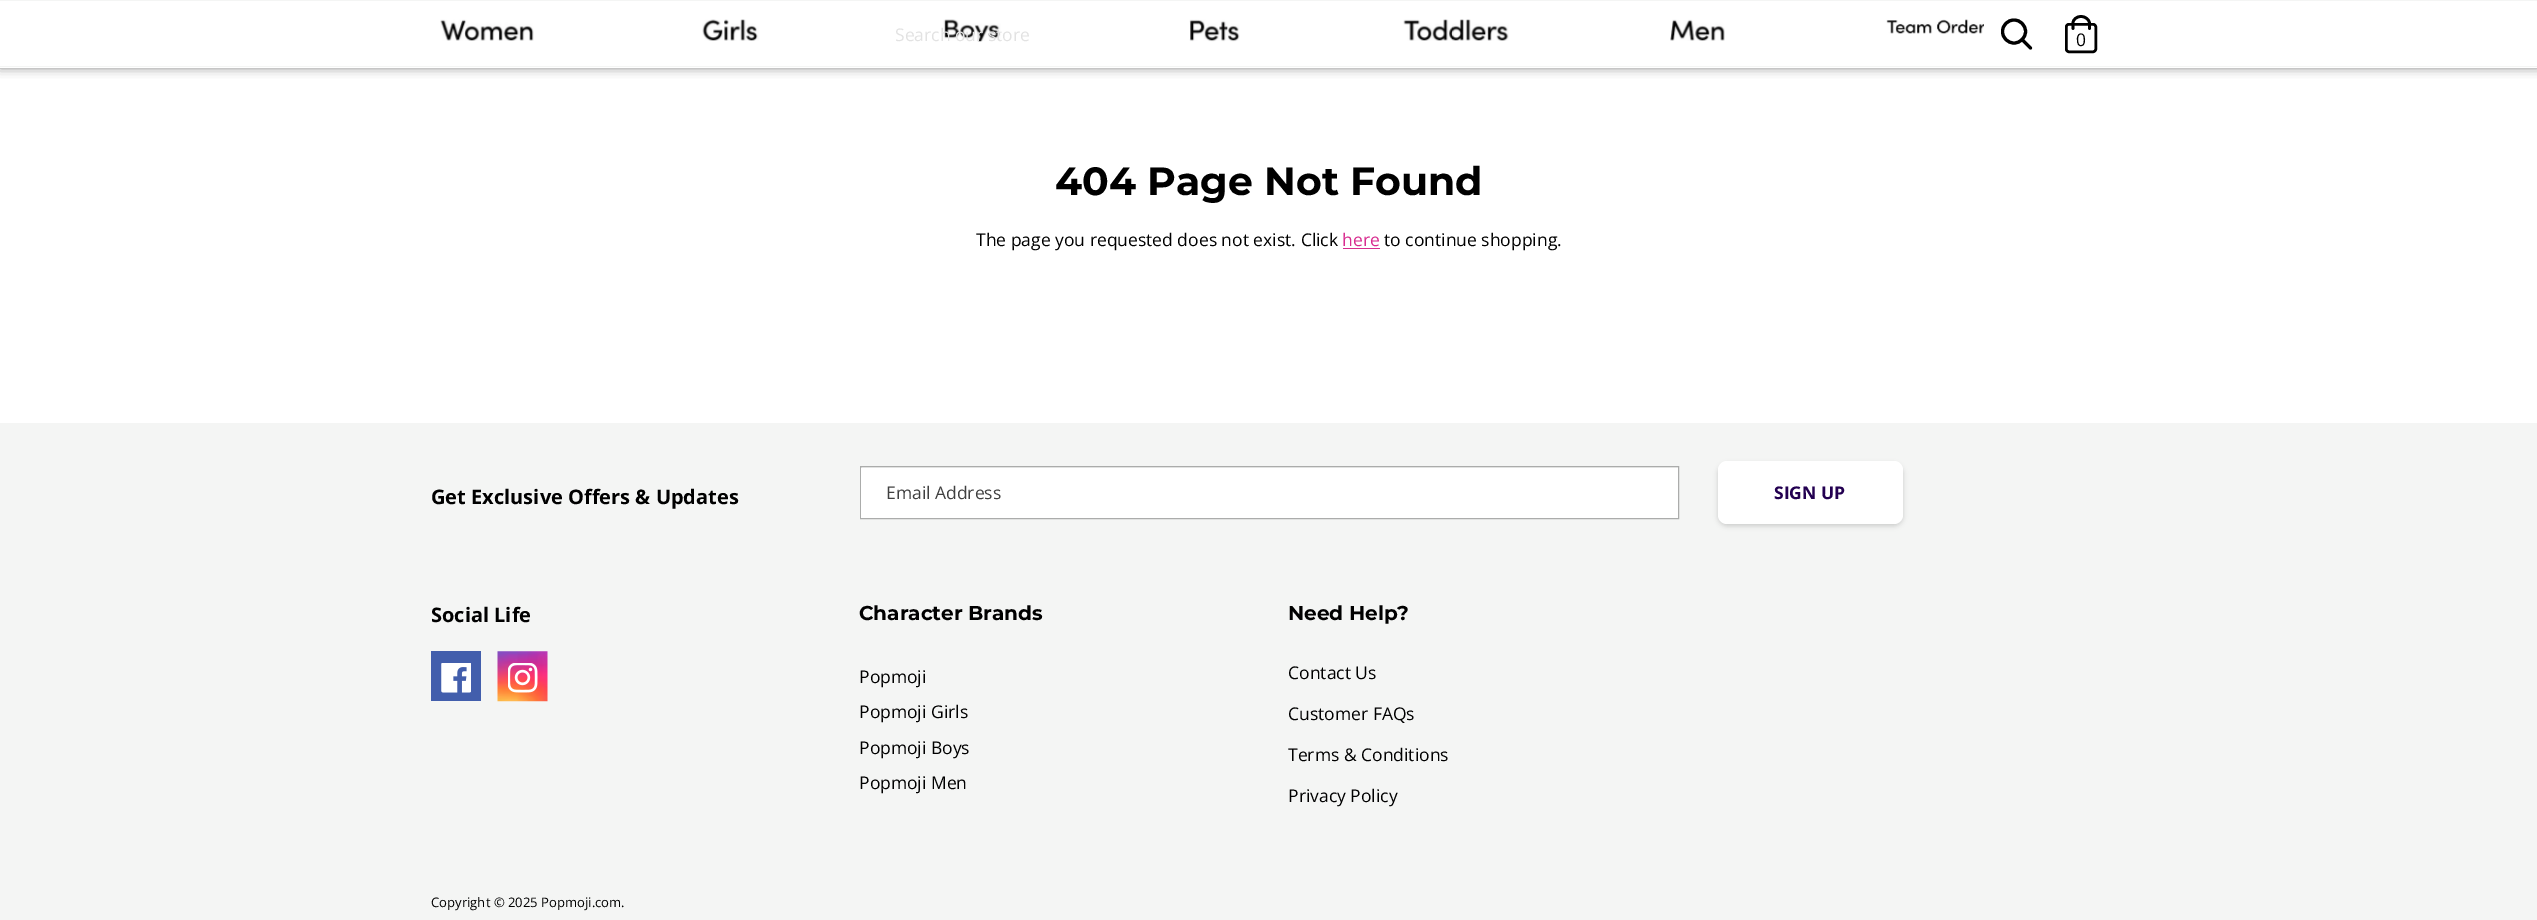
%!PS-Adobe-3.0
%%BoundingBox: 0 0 2537 920
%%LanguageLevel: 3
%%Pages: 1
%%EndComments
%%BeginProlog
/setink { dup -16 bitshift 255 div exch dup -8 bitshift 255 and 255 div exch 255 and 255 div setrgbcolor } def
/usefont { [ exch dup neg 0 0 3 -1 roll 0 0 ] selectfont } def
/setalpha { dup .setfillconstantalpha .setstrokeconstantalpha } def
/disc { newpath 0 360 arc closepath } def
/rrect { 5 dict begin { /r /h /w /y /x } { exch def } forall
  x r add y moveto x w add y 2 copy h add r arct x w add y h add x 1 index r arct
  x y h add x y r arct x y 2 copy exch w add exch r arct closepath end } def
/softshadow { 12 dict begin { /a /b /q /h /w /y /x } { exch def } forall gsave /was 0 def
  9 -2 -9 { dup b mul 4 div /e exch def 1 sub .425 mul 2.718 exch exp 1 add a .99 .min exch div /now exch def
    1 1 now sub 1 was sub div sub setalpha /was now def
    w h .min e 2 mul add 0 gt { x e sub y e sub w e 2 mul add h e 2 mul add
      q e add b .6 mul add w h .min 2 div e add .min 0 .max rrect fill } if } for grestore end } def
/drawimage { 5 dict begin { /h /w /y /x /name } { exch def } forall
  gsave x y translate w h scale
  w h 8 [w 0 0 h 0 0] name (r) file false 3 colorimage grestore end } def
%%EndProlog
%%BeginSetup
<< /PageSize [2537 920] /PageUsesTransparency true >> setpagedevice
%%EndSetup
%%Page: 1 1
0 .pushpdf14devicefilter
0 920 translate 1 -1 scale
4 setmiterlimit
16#FFFFFF setink
0 0 2537 920 rectfill
16#000000 setink
0 -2 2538 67 0 6 0.75 softshadow
[
    [0 1 2537 67 16#FFFFFF]
    [0 0 2537 1 16#F4F5F4]
    [0 66 2537 1 16#F4F5F4]
] { aload pop setink rectfill } forall
(img1.raw) 440 19 94 22 drawimage
(img2.raw) 702 19 57 22 drawimage
(img3.raw) 943 19 58 23 drawimage
(img4.raw) 1189 19 51 23 drawimage
(img5.raw) 1403 19 106 22 drawimage
(img6.raw) 1670 19 55 22 drawimage
(img7.raw) 1886 19 98 15 drawimage
/OpenSans-Regular 17.5 usefont
16#E2E2E2 setink
895 41 moveto (Search our store) show
16#000000 setink
3.1 setlinewidth
2014 31.5 11.5 disc stroke
1 setlinecap
2030.5 48 moveto 2022 39.5 lineto stroke
2.5 setlinewidth
0 setlinecap
2066.25 24.25 29.5 27.5 2.75 rrect stroke
2.7 setlinewidth
1 setlinecap
2073 28.5 moveto 2073 23 lineto 2073 19.5 2076.5 16.5 2081 16.5 curveto 2085.5 16.5 2089 19.5 2089.5 23 curveto 2089.5 28.5 lineto stroke
2076 46 moveto (0) show
/Montserrat-Bold 39.4 usefont
1055 195 moveto (404 Page Not Found) show
/OpenSans-Regular 17.5 usefont
976 246 moveto (The page you requested does not exist. Click) show
16#D82C8F setink
1342 246 moveto (here) show
1343 248 37 1 rectfill
16#000000 setink
1384 246 moveto (to continue shopping.) show
16#F4F5F4 setink
0 423 2537 497 rectfill
/OpenSans-Bold 20 usefont
16#000000 setink
431 504 moveto (Get Exclusive Offers & Updates) show
16#ABACAB setink
1 setlinewidth
0 setlinecap
860.5 466.5 818 52 rectstroke
16#FFFFFF setink
861 468 817 50 rectfill
/OpenSans-Regular 17.5 usefont
16#404040 setink
886 499 moveto (Email Address) show
16#CCCCCC setink
1718 464 185 62 9 2.5 1 softshadow
16#FFFFFF setink
1718 461 185 63 9 rrect fill
/OpenSans-Bold 17.5 usefont
16#230051 setink
1774 499 moveto (SIGN UP) show
/OpenSans-Bold 20 usefont
16#000000 setink
431 622 moveto (Social Life) show
16#425EAC setink
431 651 50 50 rectfill
(img8.raw) 441 663 30 30 drawimage
(img9.raw) 497 651 51 51 drawimage
(img10.raw) 508 663 30 30 drawimage
/Montserrat-Bold 20 usefont
16#000000 setink
859 620 moveto (Character Brands) show
/OpenSans-Regular 17.5 usefont
[
    [(Popmoji) 859 683]
    [(Popmoji Girls) 859 718]
    [(Popmoji Boys) 859 754]
    [(Popmoji Men) 859 789]
] { aload pop moveto show } forall
/Montserrat-Bold 20 usefont
1288 620 moveto (Need Help?) show
/OpenSans-Regular 17.5 usefont
[
    [(Contact Us) 1288 679]
    [(Customer FAQs) 1288 720]
    [(Terms & Conditions) 1288 761]
    [(Privacy Policy) 1288 802]
] { aload pop moveto show } forall
/OpenSans-Regular 13.1 usefont
431 907 moveto (Copyright © 2025 Popmoji.com.) show
.poppdf14devicefilter showpage
%%EOF
